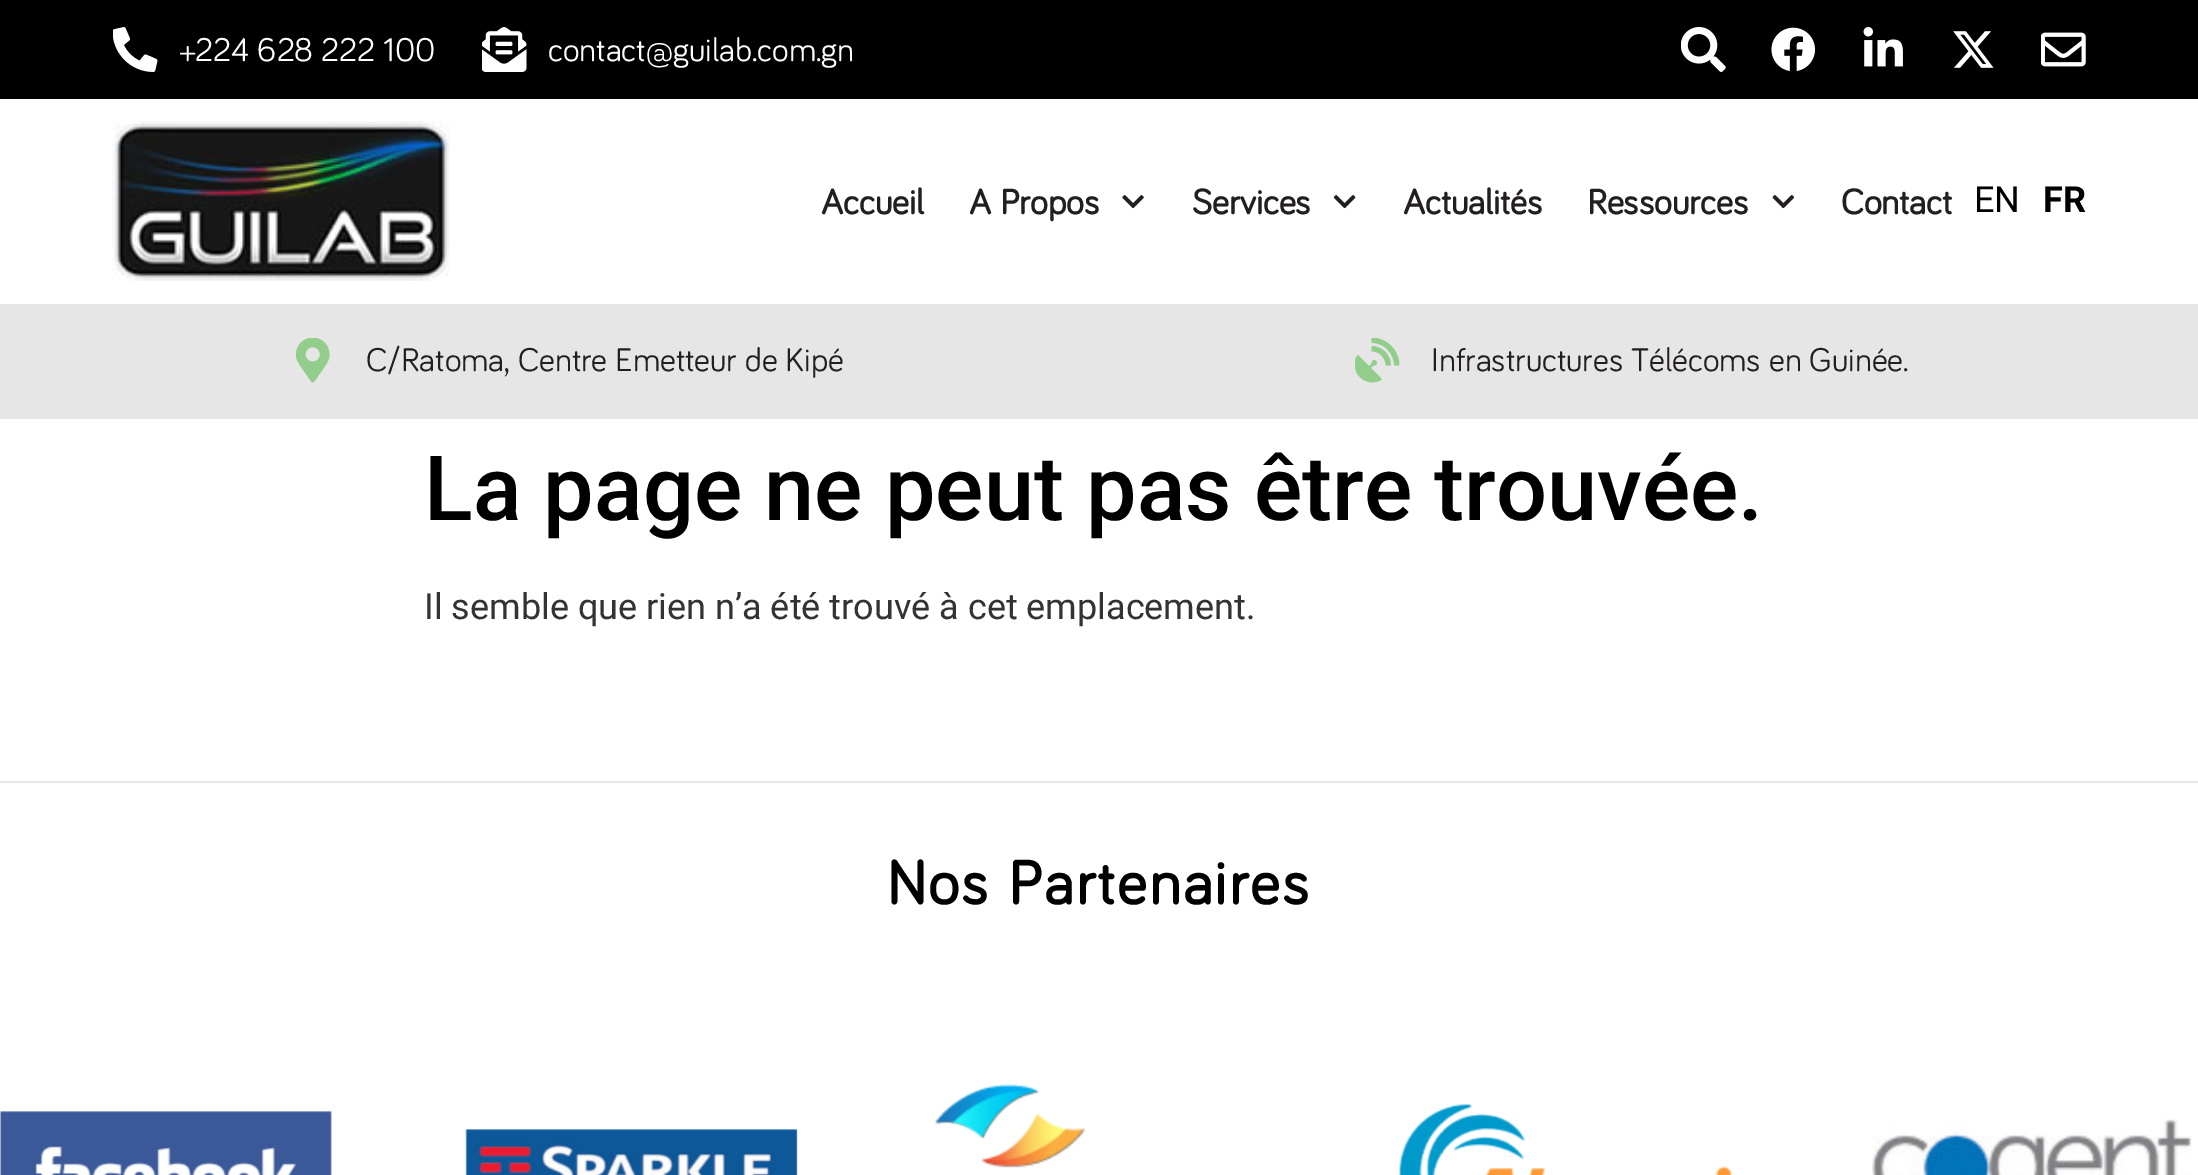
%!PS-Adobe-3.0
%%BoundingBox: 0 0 2198 1175
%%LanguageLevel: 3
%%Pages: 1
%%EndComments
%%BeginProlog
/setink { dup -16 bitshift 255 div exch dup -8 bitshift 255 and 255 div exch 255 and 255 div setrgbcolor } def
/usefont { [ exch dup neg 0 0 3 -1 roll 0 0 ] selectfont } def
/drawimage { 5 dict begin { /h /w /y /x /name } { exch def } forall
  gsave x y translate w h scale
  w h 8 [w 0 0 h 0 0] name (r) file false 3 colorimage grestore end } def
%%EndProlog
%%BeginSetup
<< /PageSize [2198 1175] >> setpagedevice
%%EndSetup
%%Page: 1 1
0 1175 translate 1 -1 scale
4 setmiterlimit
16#FFFFFF setink
0 0 2198 1175 rectfill
16#000000 setink
0 0 2198 99 rectfill
(img1.raw) 113 27 45 45 drawimage
/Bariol-Regular 33.75 usefont
16#FFFFFF setink
180 61 moveto (+224 628 222 100) show
(img2.raw) 482 27 45 45 drawimage
548 61 moveto (contact@guilab.com.gn) show
(img3.raw) 1681 27 45 45 drawimage
(img4.raw) 1771 27 45 44 drawimage
(img5.raw) 1863 27 40 40 drawimage
(img6.raw) 1953 31 41 37 drawimage
(img7.raw) 2041 32 45 35 drawimage
(img8.raw) 112 121 338 160 drawimage
/Bariol-Bold 36 usefont
16#231F20 setink
821 214 moveto (Accueil) show
969 214 moveto (A Propos) show
(img9.raw) 1122 195 22 14 drawimage
1192 214 moveto (Services) show
(img10.raw) 1333 195 23 14 drawimage
1403 214 moveto (Actualités) show
1587 214 moveto (Ressources) show
(img11.raw) 1772 195 23 14 drawimage
1841 214 moveto (Contact) show
/Roboto-Regular 36 usefont
16#000000 setink
1974 212 moveto (EN) show
/Roboto-Bold 36 usefont
2043 212 moveto (FR) show
16#E6E6E6 setink
0 304 2198 115 rectfill
(img12.raw) 295 338 35 45 drawimage
/Bariol-Regular 33.75 usefont
16#231F20 setink
366 371 moveto (C/Ratoma, Centre Emetteur de Kipé) show
(img13.raw) 1355 338 45 45 drawimage
1431 371 moveto (Infrastructures Télécoms en Guinée.) show
/Roboto-Medium 90 usefont
16#000000 setink
424 520 moveto (La page ne peut pas être trouvée.) show
/Roboto-Regular 36 usefont
16#333333 setink
424 619 moveto (Il semble que rien n’a été trouvé à cet emplacement.) show
16#E6E6E6 setink
0 781 2198 2 rectfill
/Bariol-Bold 63 usefont
16#000000 setink
887 904 moveto 2.25 0 (Nos Partenaires) ashow
(img14.raw) 0 1111 332 64 drawimage
(img15.raw) 465 1129 333 46 drawimage
(img16.raw) 935 1084 151 84 drawimage
(img17.raw) 1399 1104 333 71 drawimage
(img18.raw) 1872 1119 320 56 drawimage
showpage
%%EOF
